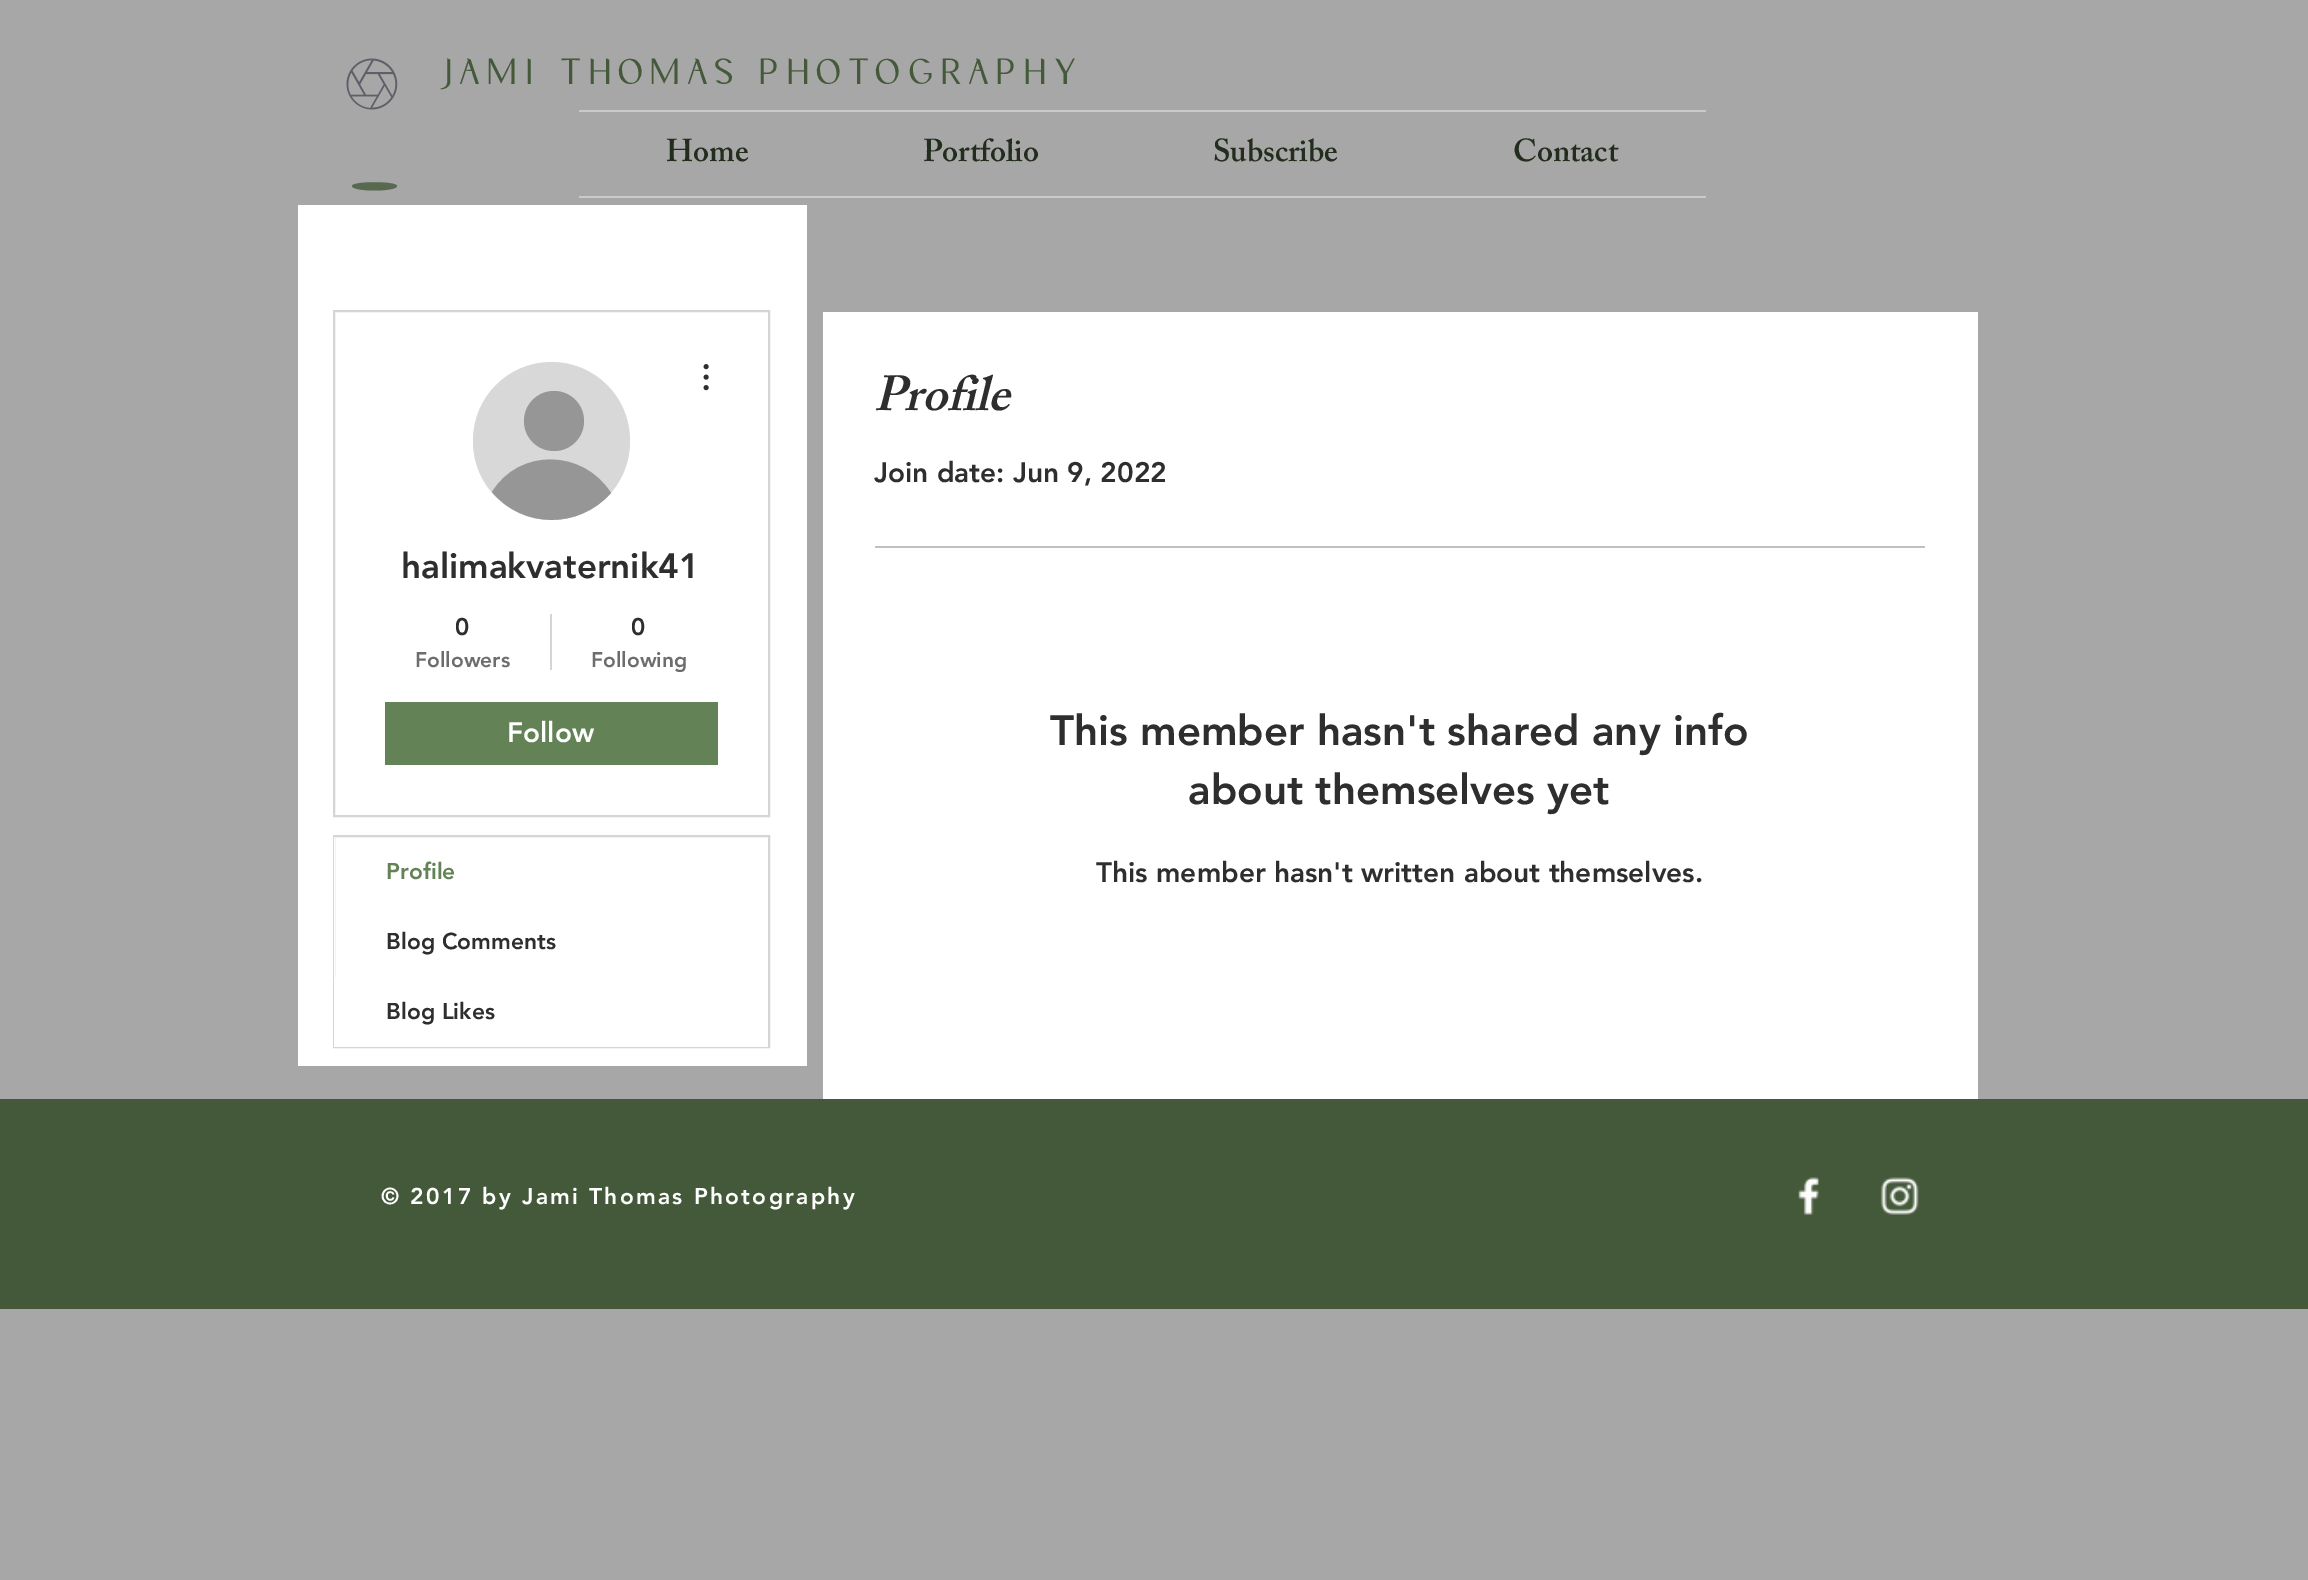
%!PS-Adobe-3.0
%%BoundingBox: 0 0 2308 1580
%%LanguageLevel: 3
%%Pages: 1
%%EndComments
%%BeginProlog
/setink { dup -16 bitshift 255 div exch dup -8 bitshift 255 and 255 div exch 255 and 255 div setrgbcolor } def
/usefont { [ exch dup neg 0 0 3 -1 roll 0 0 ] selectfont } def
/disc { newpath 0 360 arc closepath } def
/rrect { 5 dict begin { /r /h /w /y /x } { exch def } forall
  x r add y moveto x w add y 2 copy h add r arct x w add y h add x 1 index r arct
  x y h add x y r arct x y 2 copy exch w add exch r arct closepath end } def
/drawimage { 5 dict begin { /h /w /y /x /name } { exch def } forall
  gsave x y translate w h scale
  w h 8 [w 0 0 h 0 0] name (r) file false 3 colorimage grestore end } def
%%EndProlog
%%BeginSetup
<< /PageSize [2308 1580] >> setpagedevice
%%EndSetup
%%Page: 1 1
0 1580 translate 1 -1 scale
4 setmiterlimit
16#A7A7A7 setink
0 0 2308 1580 rectfill
(img1.raw) 346 58 52 52 drawimage
/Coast-Bold 35 usefont
16#44593A setink
437 84 moveto 5.25 0 (Jami Thomas Photography) ashow
16#586950 setink
397 186 moveto 397 192 352 192 352 186 curveto 352 181 397 181 397 186 curveto closepath fill
16#FFFFFF setink
298 205 509 861 rectfill
16#D5D5D5 setink
2 setlinewidth
334 311 435 505 rectstroke
16#D8D8D8 setink
473 362 157 158 78.5 rrect fill
16#969696 setink
554 421 30 disc fill
611 493 moveto 579 529 523 529 492 492 curveto 519 448 583 449 611 493 curveto closepath fill
(img2.raw) 703 364 6 27 drawimage
/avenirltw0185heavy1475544-Black 35 usefont
16#2F2E2E setink
401 578 moveto (halimakvaternik41) show
/avenirltw0185heavy1475544-Black 24 usefont
455 635 moveto (0) show
/avenirltw0185heavy1475544-Black 21 usefont
16#6D6D6D setink
415 667 moveto (Followers) show
16#D5D5D5 setink
550 614 2 56 rectfill
/avenirltw0185heavy1475544-Black 24 usefont
16#2F2E2E setink
631 635 moveto (0) show
/avenirltw0185heavy1475544-Black 21 usefont
16#6D6D6D setink
591 667 moveto (Following) show
16#638256 setink
385 702 333 63 rectfill
/avenirltw0185heavy1475544-Black 28 usefont
16#FFFFFF setink
507 742 moveto (Follow) show
16#D5D5D5 setink
334 836 435 211 rectstroke
16#FFFFFF setink
334 837 1 140 rectfill
/avenirltw0185heavy1475544-Black 22.75 usefont
16#638256 setink
386 879 moveto (Profile) show
16#2F2E2E setink
386 949 moveto (Blog Comments) show
16#FFFFFF setink
334 977 434 70 rectfill
16#2F2E2E setink
386 1019 moveto (Blog Likes) show
16#CACACA setink
579 110 1127 2 rectfill
579 196 1127 2 rectfill
/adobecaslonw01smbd-SemiBold 31.5 usefont
16#222D1D setink
[
    [(Home) 666 161]
    [(Portfolio) 923 161]
    [(Subscribe) 1213 161]
    [(Contact) 1513 161]
] { aload pop moveto show } forall
16#FFFFFF setink
823 312 1155 787 rectfill
/adobecaslonw01smbd-SemiBoldItalic 49 usefont
16#2F2E2E setink
874 410 moveto (Profile) show
/avenirltw0185heavy1475544-Black 28 usefont
874 482 moveto (Join date: Jun 9, 2022) show
16#C1C0C0 setink
875 546 1050 2 rectfill
/avenirltw0185heavy1475544-Black 42 usefont
16#2F2E2E setink
1050 745 moveto (This member hasn't shared any info) show
1188 804 moveto (about themselves yet) show
/avenirltw0185heavy1475544-Black 28 usefont
1096 882 moveto (This member hasn't written about themselves.) show
16#44593A setink
0 1099 2308 210 rectfill
/avenirltw0185heavy1475544-Black 22.75 usefont
16#FFFFFF setink
381 1204 moveto 2.25 0 (© 2017 by Jami Thomas Photography) ashow
(img3.raw) 1798 1177 21 38 drawimage
(img4.raw) 1880 1177 39 38 drawimage
showpage
%%EOF
